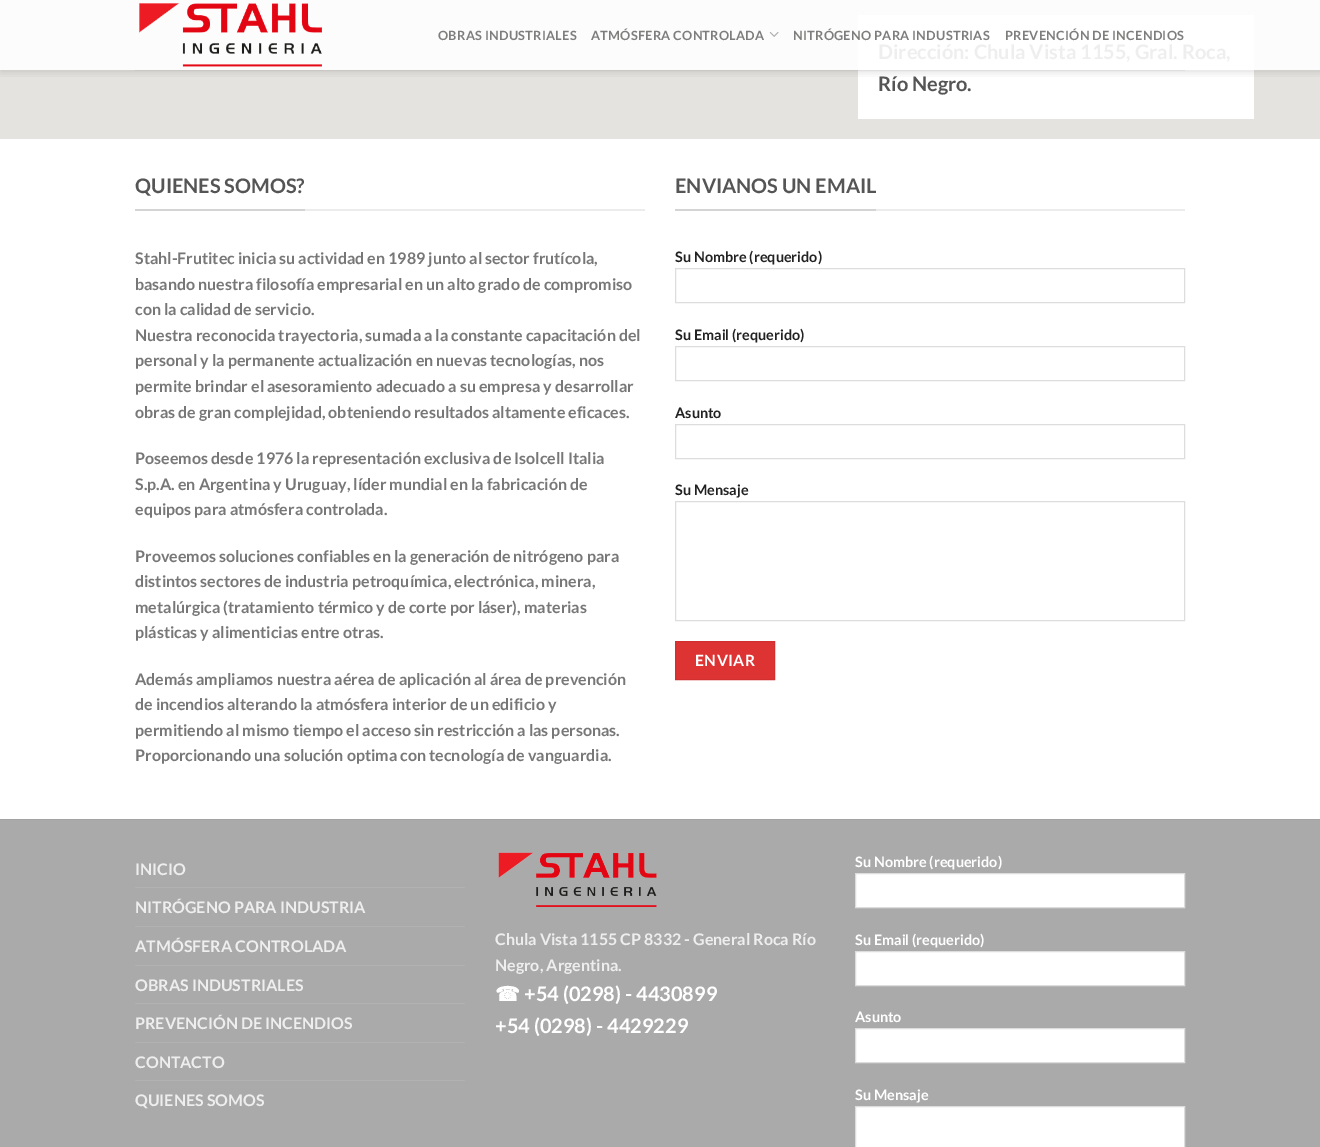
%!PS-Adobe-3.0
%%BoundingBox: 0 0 1320 1147
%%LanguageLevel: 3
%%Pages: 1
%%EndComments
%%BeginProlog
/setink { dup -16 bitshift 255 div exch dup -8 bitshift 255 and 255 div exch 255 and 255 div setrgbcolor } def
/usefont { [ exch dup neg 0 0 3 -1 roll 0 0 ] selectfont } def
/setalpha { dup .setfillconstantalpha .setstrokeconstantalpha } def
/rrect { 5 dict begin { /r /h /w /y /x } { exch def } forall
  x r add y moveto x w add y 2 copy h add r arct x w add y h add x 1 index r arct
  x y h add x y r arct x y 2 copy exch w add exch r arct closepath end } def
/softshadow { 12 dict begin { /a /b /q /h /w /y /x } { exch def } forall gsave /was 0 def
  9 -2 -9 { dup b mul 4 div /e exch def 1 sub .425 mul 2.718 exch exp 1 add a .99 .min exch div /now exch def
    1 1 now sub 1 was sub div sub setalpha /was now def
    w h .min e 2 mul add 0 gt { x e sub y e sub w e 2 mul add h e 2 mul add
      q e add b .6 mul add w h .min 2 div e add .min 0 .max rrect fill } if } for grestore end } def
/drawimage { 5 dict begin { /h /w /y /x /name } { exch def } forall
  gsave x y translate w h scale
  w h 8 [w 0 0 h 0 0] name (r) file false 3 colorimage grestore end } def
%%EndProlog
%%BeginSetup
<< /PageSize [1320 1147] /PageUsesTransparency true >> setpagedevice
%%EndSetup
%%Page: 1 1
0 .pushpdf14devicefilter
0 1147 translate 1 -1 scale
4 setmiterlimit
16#FFFFFF setink
0 0 1320 1147 rectfill
[
    [0 70 1320 69 16#E5E3DF]
    [0 0 1320 70 16#FCFCFC]
    [858 15 396 104 16#FFFFFF]
] { aload pop setink rectfill } forall
gsave
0 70 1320 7 rectclip
16#000000 setink
1 1 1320 70 0 5 0.15 softshadow
grestore
(img1.raw) 139 3 183 64 drawimage
/Lato-Bold 12.75 usefont
16#7D7D7C setink
438 40 moveto 0.25 0 (OBRAS INDUSTRIALES) ashow
591 40 moveto 0.25 0 (ATMÓSFERA CONTROLADA) ashow
(img2.raw) 769 31 10 6 drawimage
793 40 moveto 0.25 0 (NITRÓGENO PARA INDUSTRIAS) ashow
1005 40 moveto 0.25 0 (PREVENCIÓN DE INCENDIOS) ashow
0.1 setalpha
16#777777 setink
135 70 1050 1 rectfill
/Lato-Bold 20 usefont
1 setalpha
16#EEEEEE setink
878 59 moveto (Dirección: Chula Vista 1155, Gral. Roca,) show
16#555555 setink
878 91 moveto (Río Negro.) show
16#ECECEC setink
305 209 340 2 rectfill
16#D4D4D4 setink
135 209 170 2 rectfill
16#555555 setink
135 193 moveto (QUIENES SOMOS?) show
/Lato-Bold 16 usefont
16#777777 setink
[
    [(Stahl-Frutitec inicia su actividad en 1989 junto al sector frutícola,) 135 264]
    [(basando nuestra filosofía empresarial en un alto grado de compromiso) 135 290]
    [(con la calidad de servicio.) 135 315]
    [(Nuestra reconocida trayectoria, sumada a la constante capacitación del) 135 341]
    [(personal y la permanente actualización en nuevas tecnologías, nos) 135 366]
    [(permite brindar el asesoramiento adecuado a su empresa y desarrollar) 135 392]
    [(obras de gran complejidad, obteniendo resultados altamente eficaces.) 135 418]
    [(Poseemos desde 1976 la representación exclusiva de Isolcell Italia) 135 464]
    [(S.p.A. en Argentina y Uruguay, líder mundial en la fabricación de) 135 490]
    [(equipos para atmósfera controlada.) 135 515]
    [(Proveemos soluciones confiables en la generación de nitrógeno para) 135 562]
    [(distintos sectores de industria petroquímica, electrónica, minera,) 135 587]
    [(metalúrgica \(tratamiento térmico y de corte por láser\), materias) 135 613]
    [(plásticas y alimenticias entre otras.) 135 638]
    [(Además ampliamos nuestra aérea de aplicación al área de prevención) 135 685]
    [(de incendios alterando la atmósfera interior de un edificio y) 135 710]
    [(permitiendo al mismo tiempo el acceso sin restricción a las personas.) 135 736]
    [(Proporcionando una solución optima con tecnología de vanguardia.) 135 761]
] { aload pop moveto show } forall
16#ECECEC setink
876 209 309 2 rectfill
16#D4D4D4 setink
675 209 201 2 rectfill
/Lato-Bold 20 usefont
16#555555 setink
675 193 moveto (ENVIANOS UN EMAIL) show
/Lato-Bold 14.4 usefont
16#222222 setink
675 262 moveto (Su Nombre \(requerido\)) show
16#DDDDDD setink
675.5 268.5 509 34 rectstroke
16#222222 setink
675 340 moveto (Su Email \(requerido\)) show
16#DDDDDD setink
675.5 346.5 509 34 rectstroke
16#222222 setink
675 418 moveto (Asunto) show
16#DDDDDD setink
675.5 424.5 509 34 rectstroke
16#222222 setink
675 495 moveto (Su Mensaje) show
16#DDDDDD setink
675.5 501.5 509 119 rectstroke
16#DD3333 setink
675.5 641.5 moveto 774.5 641.5 lineto 774.5 679.5 lineto 675.5 679.5 lineto closepath gsave fill grestore
16#D23030 setink
stroke
/Lato-Bold 15.5 usefont
16#FFFFFF setink
695 666 moveto 0.5 0 (ENVIAR) ashow
16#AAAAAA setink
0 820 1320 327 rectfill
16#A2A2A2 setink
0 819 1320 1 rectfill
/Lato-Bold 16 usefont
16#EEEEEE setink
135 875 moveto (INICIO) show
16#B1B1B1 setink
135 887 330 1 rectfill
16#EEEEEE setink
135 913 moveto (NITRÓGENO PARA INDUSTRIA) show
16#B1B1B1 setink
135 926 330 1 rectfill
16#EEEEEE setink
135 952 moveto (ATMÓSFERA CONTROLADA) show
16#B1B1B1 setink
135 965 330 1 rectfill
16#EEEEEE setink
135 991 moveto (OBRAS INDUSTRIALES) show
16#B1B1B1 setink
135 1003 330 1 rectfill
16#EEEEEE setink
135 1029 moveto (PREVENCIÓN DE INCENDIOS) show
16#B1B1B1 setink
135 1042 330 1 rectfill
16#EEEEEE setink
135 1068 moveto (CONTACTO) show
16#B1B1B1 setink
135 1080 330 1 rectfill
16#EEEEEE setink
135 1106 moveto (QUIENES SOMOS) show
(img3.raw) 498 852 159 55 drawimage
495 945 moveto (Chula Vista 1155 CP 8332 - General Roca Río) show
495 971 moveto (Negro, Argentina.) show
/DejaVuSans-Bold 20 usefont
16#FFFFFF setink
495 1001 moveto (☎) show
/Lato-Bold 20 usefont
524 1001 moveto (+54 \(0298\) - 4430899) show
495 1033 moveto (+54 \(0298\) - 4429229) show
/Lato-Bold 14.4 usefont
855 867 moveto (Su Nombre \(requerido\)) show
855.5 873.5 moveto 1184.5 873.5 lineto 1184.5 907.5 lineto 855.5 907.5 lineto closepath gsave fill grestore
16#DDDDDD setink
stroke
16#FFFFFF setink
855 945 moveto (Su Email \(requerido\)) show
855.5 951.5 moveto 1184.5 951.5 lineto 1184.5 985.5 lineto 855.5 985.5 lineto closepath gsave fill grestore
16#DDDDDD setink
stroke
16#FFFFFF setink
855 1022 moveto (Asunto) show
855.5 1028.5 moveto 1184.5 1028.5 lineto 1184.5 1062.5 lineto 855.5 1062.5 lineto closepath gsave fill grestore
16#DDDDDD setink
stroke
16#FFFFFF setink
855 1100 moveto (Su Mensaje) show
855.5 1106.5 moveto 1184.5 1106.5 lineto 1184.5 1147.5 lineto 855.5 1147.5 lineto closepath gsave fill grestore
16#DDDDDD setink
stroke
.poppdf14devicefilter showpage
%%EOF
